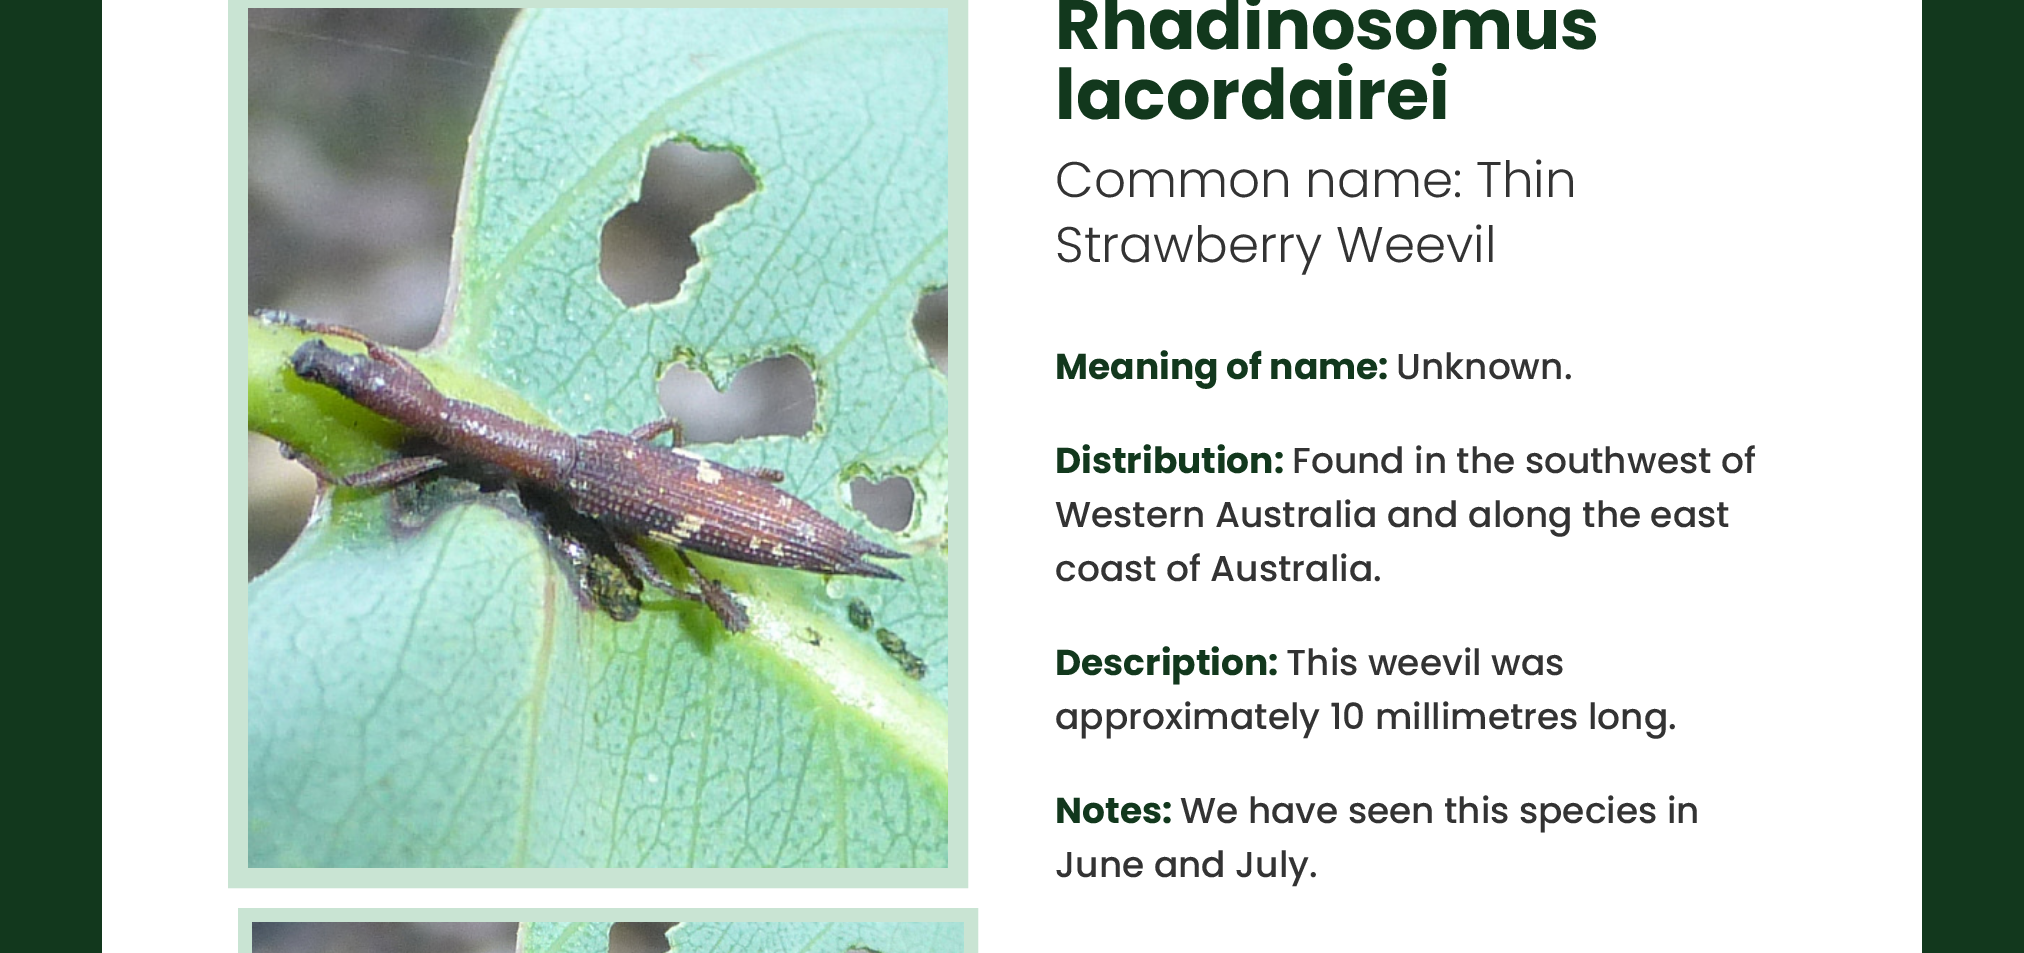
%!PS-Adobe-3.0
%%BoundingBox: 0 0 2024 953
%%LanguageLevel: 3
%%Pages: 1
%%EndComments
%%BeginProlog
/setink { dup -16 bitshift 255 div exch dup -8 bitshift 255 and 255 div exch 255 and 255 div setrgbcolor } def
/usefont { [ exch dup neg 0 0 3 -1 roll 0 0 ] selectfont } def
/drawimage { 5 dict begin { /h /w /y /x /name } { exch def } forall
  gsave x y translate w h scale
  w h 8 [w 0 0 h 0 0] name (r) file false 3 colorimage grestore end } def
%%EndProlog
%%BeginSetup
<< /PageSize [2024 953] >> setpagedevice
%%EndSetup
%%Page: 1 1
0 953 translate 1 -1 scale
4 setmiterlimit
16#12381D setink
0 0 2024 953 rectfill
16#FFFFFF setink
102 0 1820 953 rectfill
16#C9E4D3 setink
20 setlinewidth
238 -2 720 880 rectstroke
(img1.raw) 248 8 700 860 drawimage
14 setlinewidth
245 915 726 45 rectstroke
(img2.raw) 252 922 712 31 drawimage
/Poppins-Bold 70 usefont
16#12381D setink
1055 49 moveto (Rhadinosomus) show
1055 119 moveto (lacordairei) show
/Poppins-Light 50 usefont
16#333333 setink
1055 197 moveto (Common name: Thin) show
1055 262 moveto (Strawberry Weevil) show
/Poppins-Bold 36 usefont
16#12381D setink
1055 379 moveto (Meaning of name:) show
/Poppins-Medium 36 usefont
16#333333 setink
1396 379 moveto (Unknown.) show
/Poppins-Bold 36 usefont
16#12381D setink
1055 473 moveto (Distribution:) show
/Poppins-Medium 36 usefont
16#333333 setink
[
    [(Found in the southwest of) 1292 473]
    [(Western Australia and along the east) 1055 527]
    [(coast of Australia.) 1055 581]
] { aload pop moveto show } forall
/Poppins-Bold 36 usefont
16#12381D setink
1055 675 moveto (Description:) show
/Poppins-Medium 36 usefont
16#333333 setink
1286 675 moveto (This weevil was) show
1055 729 moveto (approximately 10 millimetres long.) show
/Poppins-Bold 36 usefont
16#12381D setink
1055 823 moveto (Notes:) show
/Poppins-Medium 36 usefont
16#333333 setink
1180 823 moveto (We have seen this species in) show
1055 877 moveto (June and July.) show
showpage
%%EOF
